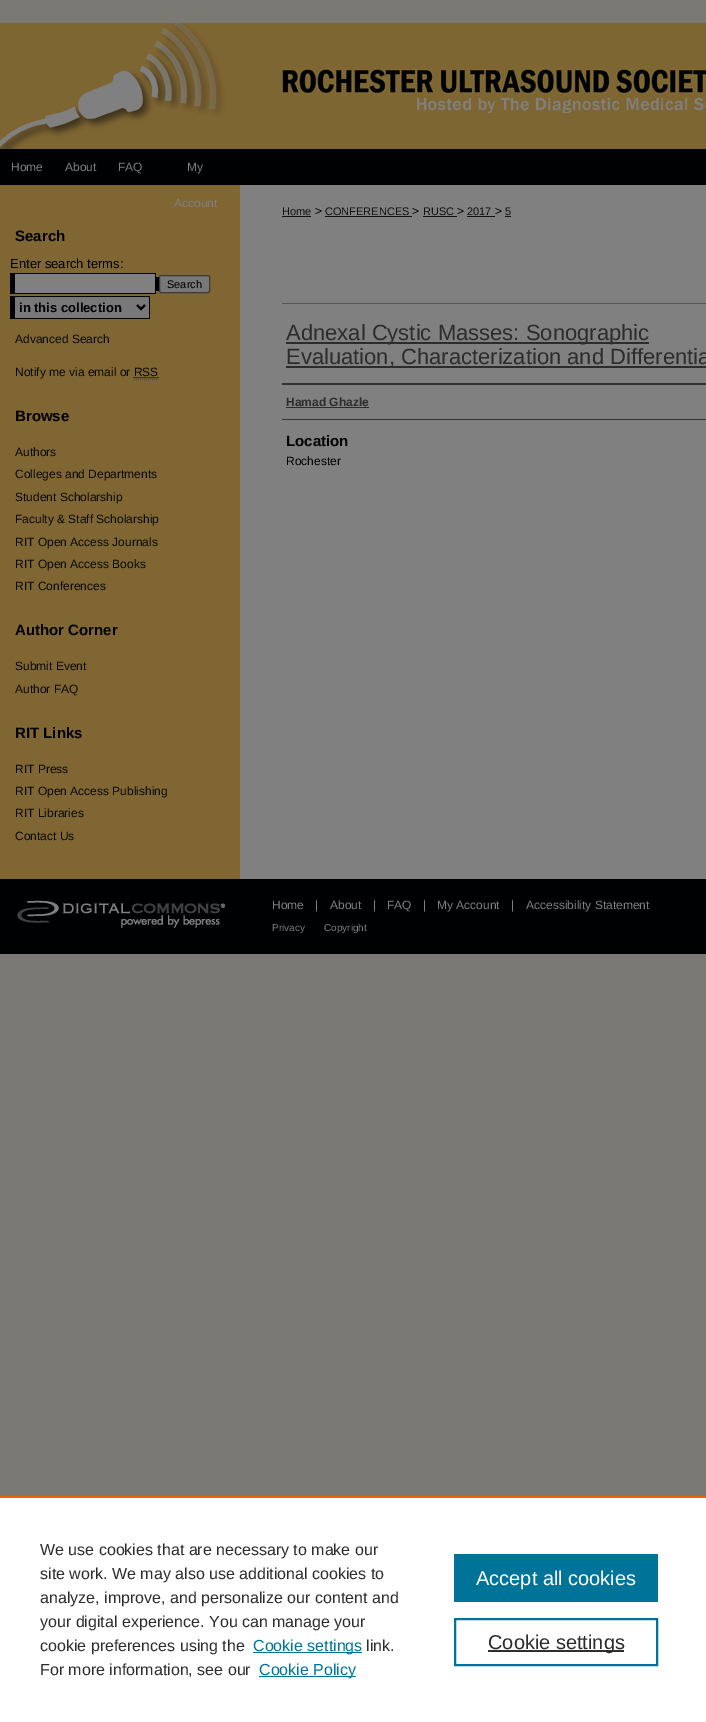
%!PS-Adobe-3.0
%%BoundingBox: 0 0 706 1722
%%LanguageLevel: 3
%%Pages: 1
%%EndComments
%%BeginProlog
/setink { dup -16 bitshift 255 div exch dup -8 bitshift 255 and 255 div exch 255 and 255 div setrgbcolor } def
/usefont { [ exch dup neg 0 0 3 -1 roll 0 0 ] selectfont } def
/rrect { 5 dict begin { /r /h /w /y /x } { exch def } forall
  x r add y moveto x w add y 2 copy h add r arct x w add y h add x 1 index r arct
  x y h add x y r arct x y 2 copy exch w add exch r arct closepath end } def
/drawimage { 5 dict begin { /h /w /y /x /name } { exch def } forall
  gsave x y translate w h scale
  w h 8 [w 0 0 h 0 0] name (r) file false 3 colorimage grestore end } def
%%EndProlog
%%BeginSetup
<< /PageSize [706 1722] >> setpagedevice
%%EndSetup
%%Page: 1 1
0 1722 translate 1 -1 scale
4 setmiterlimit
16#7B7974 setink
0 0 706 1722 rectfill
(img1.raw) 0 23 706 126 drawimage
16#000103 setink
0 149 706 36 rectfill
/LiberationSans-Regular 12 usefont
16#808080 setink
[
    [(Home) 11 171]
    [(About) 65 171]
    [(FAQ) 118 171]
    [(My) 187 171]
] { aload pop moveto show } forall
16#7F6633 setink
0 185 240 694 rectfill
16#808080 setink
174 207 moveto (Account) show
240 185 466 694 rectfill
/LiberationSans-Bold 15 usefont
16#000000 setink
15 241 moveto (Search) show
/LiberationSans-Regular 13 usefont
10 268 moveto (Enter search terms:) show
[
    [10 273 146 21 16#000103]
    [156 277 3 14 16#000103]
    [15 274 140 19 16#808080]
] { aload pop setink rectfill } forall
16#787878 setink
159.5 275.5 50 17 1.5 rrect gsave fill grestore
16#3B3B3B setink
stroke
/LiberationSans-Regular 11 usefont
16#000000 setink
167 288 moveto (Search) show
[
    [15 297 134 21 16#787878]
    [10 296 140 1 16#000103]
    [149 296 1 23 16#000103]
    [10 318 140 1 16#000103]
    [10 296 5 23 16#000103]
] { aload pop setink rectfill } forall
16#000000 setink
2 setlinewidth
137 305 moveto 141 309 lineto 145 305 lineto stroke
/LiberationSans-Bold 13 usefont
19 312 moveto (in this collection) show
/LiberationSans-Regular 12 usefont
16#090909 setink
15 343 moveto (Advanced Search) show
15 376 moveto (Notify me via email or RSS) show
1 setlinewidth
[1 1] 0 setdash
133.5 377.5 moveto 158.5 377.5 lineto stroke
16#4D4D4D setink
134 379.5 moveto 158 379.5 lineto stroke
/LiberationSans-Bold 15 usefont
16#000000 setink
15 421 moveto (Browse) show
/LiberationSans-Regular 12 usefont
16#090909 setink
[
    [(Authors) 15 456]
    [(Colleges and Departments) 15 478]
    [(Student Scholarship) 15 501]
    [(Faculty & Staff Scholarship) 15 523]
    [(RIT Open Access Journals) 15 546]
    [(RIT Open Access Books) 15 568]
    [(RIT Conferences) 15 590]
] { aload pop moveto show } forall
/LiberationSans-Bold 15 usefont
16#000000 setink
15 635 moveto (Author Corner) show
/LiberationSans-Regular 12 usefont
16#090909 setink
15 670 moveto (Submit Event) show
15 693 moveto (Author FAQ) show
/LiberationSans-Bold 15 usefont
16#000000 setink
15 738 moveto (RIT Links) show
/LiberationSans-Regular 12 usefont
16#090909 setink
[
    [(RIT Press) 15 773]
    [(RIT Open Access Publishing) 15 795]
    [(RIT Libraries) 15 817]
    [(Contact Us) 15 840]
] { aload pop moveto show } forall
/LiberationSans-Regular 11 usefont
16#111111 setink
282 215 moveto (Home) show
282 216 29 1 rectfill
/LiberationSans-Regular 12 usefont
16#000000 setink
315 215 moveto (>) show
/LiberationSans-Regular 11 usefont
16#111111 setink
325 215 moveto (CONFERENCES) show
325 216 87 1 rectfill
/LiberationSans-Regular 12 usefont
16#000000 setink
412 215 moveto (>) show
/LiberationSans-Regular 11 usefont
16#111111 setink
423 215 moveto (RUSC) show
423 216 34 1 rectfill
/LiberationSans-Regular 12 usefont
16#000000 setink
457 215 moveto (>) show
/LiberationSans-Regular 11 usefont
16#111111 setink
467 215 moveto (2017) show
467 216 28 1 rectfill
/LiberationSans-Regular 12 usefont
16#000000 setink
495 215 moveto (>) show
/LiberationSans-Regular 11 usefont
16#111111 setink
505 215 moveto (5) show
[
    [505 216 6 1 16#111111]
    [282 303 424 1 16#555555]
    [286 342 363 2 16#2C2C2C]
] { aload pop setink rectfill } forall
/LiberationSans-Regular 22 usefont
286 340 moveto (Adnexal Cystic Masses: Sonographic) show
286 366 420 2 rectfill
286 364 moveto (Evaluation, Characterization and Differentia) show
16#333333 setink
282 383 424 2 rectfill
282 419 424 1 rectfill
/LiberationSans-Bold 12 usefont
16#2C2C2C setink
286 406 moveto (Hamad Ghazle) show
286 407 83 1 rectfill
/LiberationSans-Bold 15 usefont
16#000000 setink
286 446 moveto (Location) show
/LiberationSans-Regular 12 usefont
286 465 moveto (Rochester) show
16#000103 setink
0 879 706 75 rectfill
(img2.raw) 17 900 208 28 drawimage
16#808080 setink
[
    [(Home) 272 909]
    [(|) 315 909]
    [(About) 330 909]
    [(|) 373 909]
    [(FAQ) 387 909]
    [(|) 423 909]
    [(My Account) 437 909]
    [(|) 511 909]
    [(Accessibility Statement) 526 909]
] { aload pop moveto show } forall
/LiberationSans-Regular 10 usefont
272 931 moveto (Privacy) show
324 931 moveto (Copyright) show
16#FFFFFF setink
0 1498 706 224 rectfill
16#EB6500 setink
0 1496 706 2 rectfill
/LiberationSans-Regular 16 usefont
16#2C2C2C setink
[
    [(We use cookies that are necessary to make our) 40 1555]
    [(site work. We may also use additional cookies to) 40 1579]
    [(analyze, improve, and personalize our content and) 40 1603]
    [(your digital experience. You can manage your) 40 1627]
    [(cookie preferences using the) 40 1651]
] { aload pop moveto show } forall
16#007398 setink
253 1652 109 1 rectfill
253 1651 moveto (Cookie settings) show
16#2C2C2C setink
366 1651 moveto (link.) show
40 1675 moveto (For more information, see our) show
16#007398 setink
259 1676 97 1 rectfill
259 1675 moveto (Cookie Policy) show
454 1554 204 48 rectfill
/LiberationSans-Regular 20 usefont
16#FFFFFF setink
476 1585 moveto (Accept all cookies) show
16#007398 setink
2 setlinewidth
[] 0 setdash
455 1619 202 46 rectstroke
16#2E2E2E setink
488 1650 136 2 rectfill
16#2C2C2C setink
488 1649 moveto (Cookie settings) show
showpage
%%EOF
